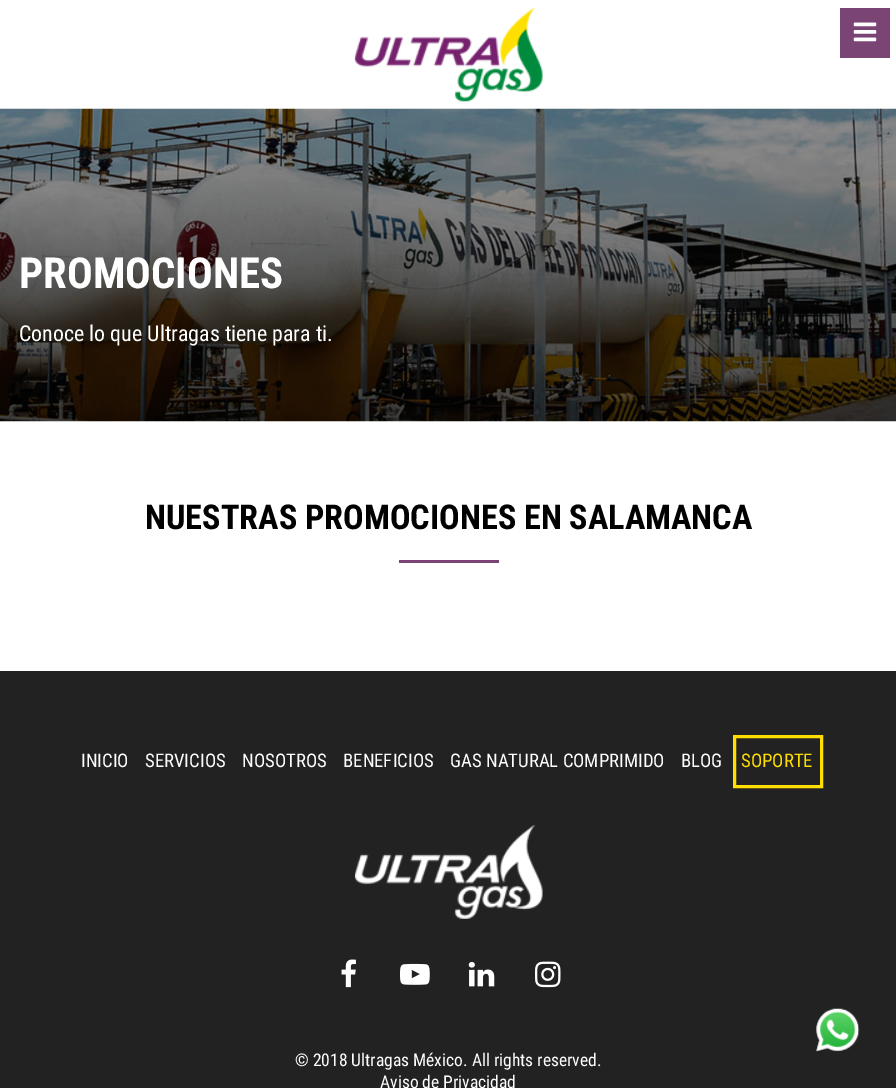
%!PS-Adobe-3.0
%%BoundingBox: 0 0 896 1088
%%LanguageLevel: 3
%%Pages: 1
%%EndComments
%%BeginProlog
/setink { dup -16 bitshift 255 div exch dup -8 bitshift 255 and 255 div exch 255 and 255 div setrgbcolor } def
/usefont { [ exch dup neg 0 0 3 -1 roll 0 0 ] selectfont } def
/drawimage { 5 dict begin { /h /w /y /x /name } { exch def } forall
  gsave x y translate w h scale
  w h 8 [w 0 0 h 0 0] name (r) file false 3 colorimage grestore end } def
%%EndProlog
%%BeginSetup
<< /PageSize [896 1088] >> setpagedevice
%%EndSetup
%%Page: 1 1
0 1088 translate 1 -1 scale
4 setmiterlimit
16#FFFFFF setink
0 0 896 1088 rectfill
(img1.raw) 354 7 189 95 drawimage
16#7A4475 setink
840 8 50 50 rectfill
(img2.raw) 853 22 24 20 drawimage
(img3.raw) 0 108 896 314 drawimage
/RobotoCondensed-Bold 42.75 usefont
16#FFFFFF setink
19 288 moveto (PROMOCIONES) show
/RobotoCondensed-Regular 21.9 usefont
19 341 moveto (Conoce lo que Ultragas tiene para ti.) show
/RobotoCondensed-Bold 34.2 usefont
16#000000 setink
145 529 moveto (NUESTRAS PROMOCIONES EN SALAMANCA) show
16#7A4475 setink
399 560 100 3 rectfill
16#222222 setink
0 671 896 417 rectfill
/RobotoCondensed-Regular 18.75 usefont
16#FFFFFF setink
[
    [(INICIO) 81 767]
    [(SERVICIOS) 145 767]
    [(NOSOTROS) 242 767]
    [(BENEFICIOS) 343 767]
    [(GAS NATURAL COMPRIMIDO) 450 767]
    [(BLOG) 681 767]
] { aload pop moveto show } forall
16#FFDE00 setink
3 setlinewidth
734.5 736.5 87 50 rectstroke
741 767 moveto (SOPORTE) show
(img4.raw) 355 825 188 94 drawimage
(img5.raw) 341 959 15 29 drawimage
(img6.raw) 400 963 30 22 drawimage
(img7.raw) 468 962 27 25 drawimage
(img8.raw) 535 961 26 27 drawimage
/RobotoCondensed-Regular 17.5 usefont
16#FFFFFF setink
295 1066 moveto (© 2018 Ultragas México. All rights reserved.) show
380 1088 moveto (Aviso de Privacidad) show
(img9.raw) 816 1008 44 44 drawimage
showpage
%%EOF
